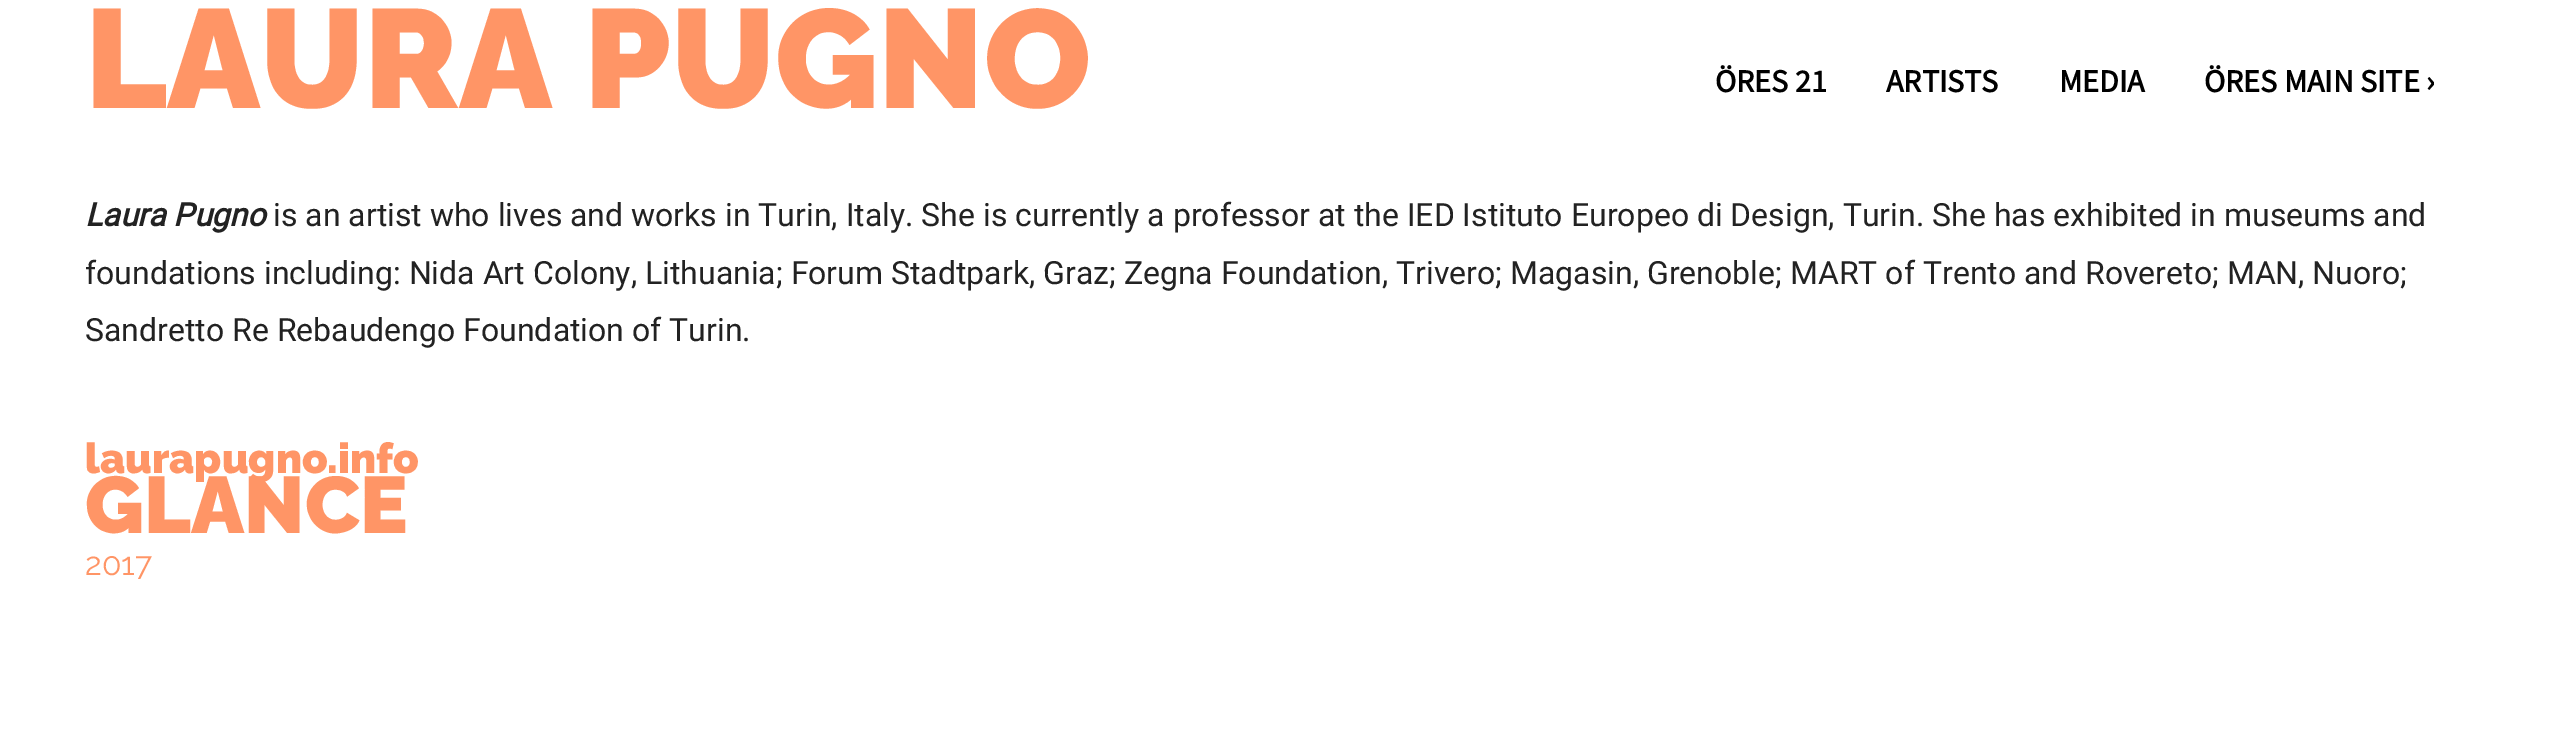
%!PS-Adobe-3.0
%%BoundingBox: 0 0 2569 747
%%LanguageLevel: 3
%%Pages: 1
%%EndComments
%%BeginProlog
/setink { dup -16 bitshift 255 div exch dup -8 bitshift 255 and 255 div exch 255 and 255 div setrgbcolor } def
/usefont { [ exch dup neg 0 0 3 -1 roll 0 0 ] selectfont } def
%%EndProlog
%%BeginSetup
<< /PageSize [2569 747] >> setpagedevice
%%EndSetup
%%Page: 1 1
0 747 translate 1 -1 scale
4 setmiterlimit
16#FFFFFF setink
0 0 2569 747 rectfill
/Raleway-Black 140 usefont
16#FF9566 setink
85 108 moveto (LAURA PUGNO) show
/Roboto-BoldItalic 32 usefont
16#222222 setink
85 226 moveto (Laura Pugno) show
/Roboto-Regular 32 usefont
[
    [(is an artist who lives and works in Turin, Italy. She is currently a professor at the IED Istituto Europeo di Design, Turin. She has exhibited in museums and) 273 226]
    [(foundations including: Nida Art Colony, Lithuania; Forum Stadtpark, Graz; Zegna Foundation, Trivero; Magasin, Grenoble; MART of Trento and Rovereto; MAN, Nuoro;) 85 284]
    [(Sandretto Re Rebaudengo Foundation of Turin.) 85 341]
] { aload pop moveto show } forall
/Raleway-Black 42 usefont
16#FF9566 setink
85 473 moveto (laurapugno.info) show
/Raleway-Black 80 usefont
85 533 moveto (GLANCE) show
/Raleway-Regular 32 usefont
85 575 moveto (2017) show
/SourceSansPro-Bold 32 usefont
16#000000 setink
[
    [(ÖRES 21) 1715 92]
    [(ARTISTS) 1886 92]
    [(MEDIA) 2059 92]
    [(ÖRES MAIN SITE ›) 2204 92]
] { aload pop moveto show } forall
showpage
%%EOF
